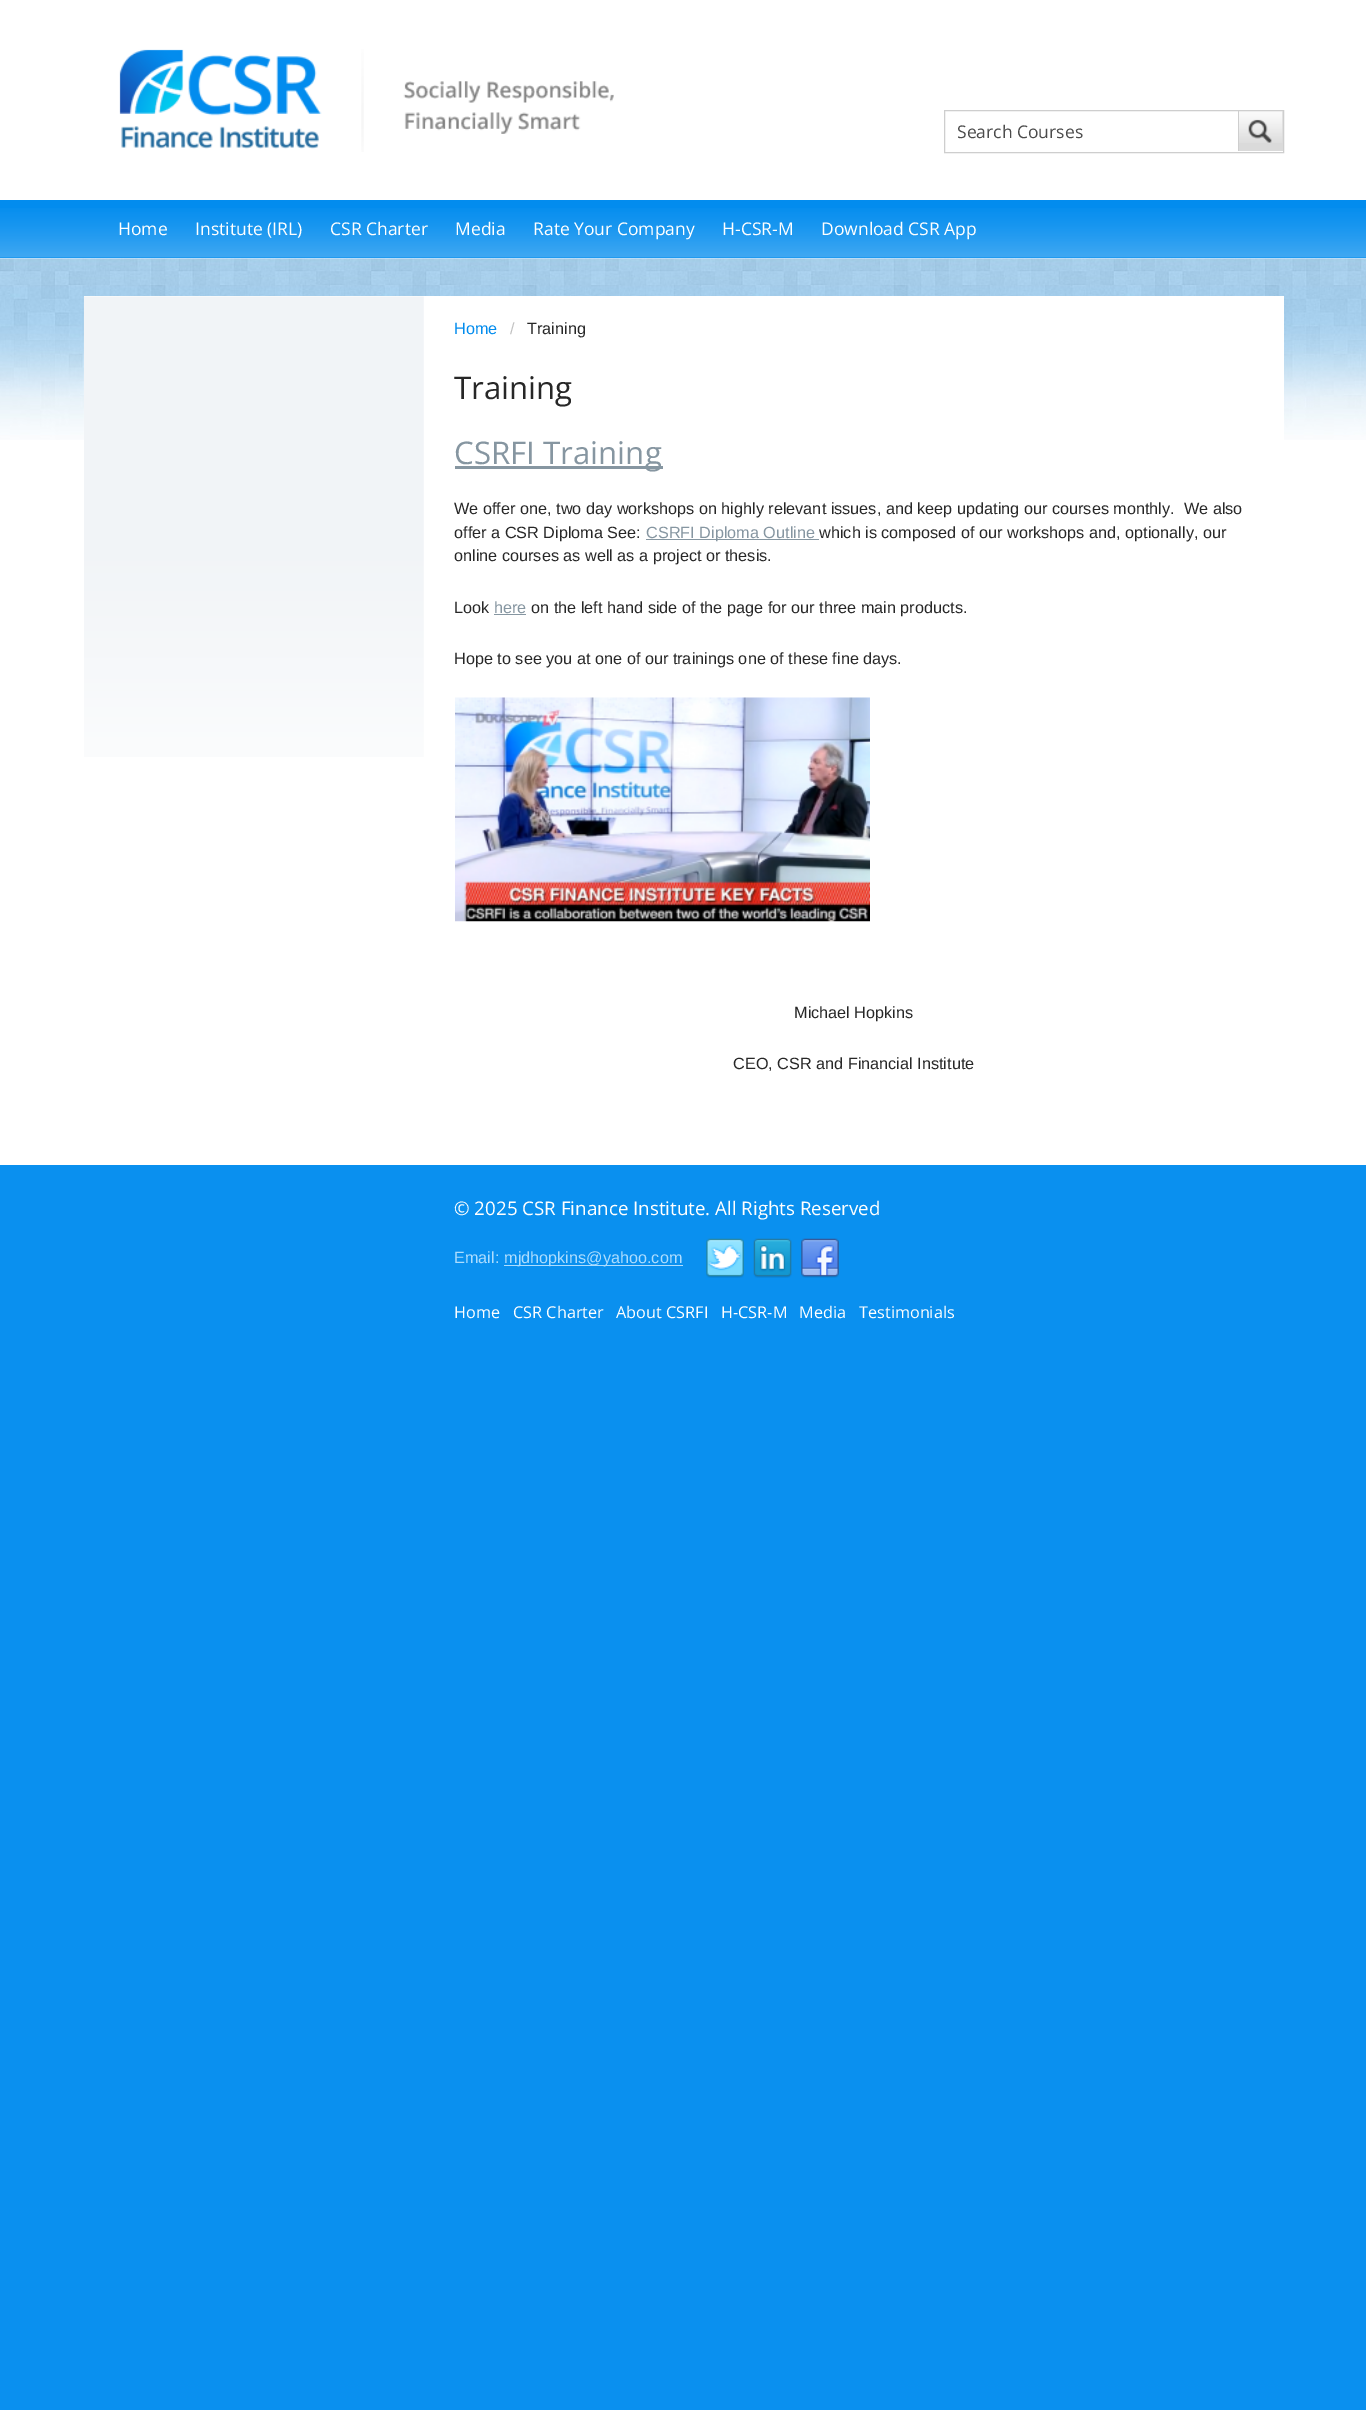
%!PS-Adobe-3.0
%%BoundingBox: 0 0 1366 2410
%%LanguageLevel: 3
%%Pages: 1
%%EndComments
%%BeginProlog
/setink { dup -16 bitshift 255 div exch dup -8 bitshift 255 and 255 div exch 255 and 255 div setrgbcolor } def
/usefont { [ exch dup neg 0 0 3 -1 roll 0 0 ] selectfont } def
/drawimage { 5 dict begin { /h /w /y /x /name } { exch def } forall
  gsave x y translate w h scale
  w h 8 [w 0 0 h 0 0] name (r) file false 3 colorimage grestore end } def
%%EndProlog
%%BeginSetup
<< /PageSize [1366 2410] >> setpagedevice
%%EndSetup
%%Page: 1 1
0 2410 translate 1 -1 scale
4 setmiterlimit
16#0A90EF setink
0 0 1366 2410 rectfill
16#FFFFFF setink
0 0 1366 200 rectfill
(img1.raw) 119 49 495 103 drawimage
16#CECECE setink
944.5 110.5 339 42 rectstroke
/OpenSans-Regular 17.5 usefont
16#4B4B4B setink
957 138 moveto (Search Courses) show
16#DADADA setink
1239 111 44 40 rectfill
(img2.raw) 1239 111 44 32 drawimage
16#CECECE setink
1238 111 1 40 rectfill
16#028CEE setink
0 200 1366 58 rectfill
(img3.raw) 0 208 1366 50 drawimage
16#FFFFFF setink
[
    [(Home) 118 235]
    [(Institute \(IRL\)) 195 235]
    [(CSR Charter) 330 235]
    [(Media) 455 235]
    [(Rate Your Company) 533 235]
    [(H-CSR-M) 722 235]
    [(Download CSR App) 821 235]
] { aload pop moveto show } forall
0 440 1366 725 rectfill
(img4.raw) 0 258 1366 182 drawimage
84 296 1200 144 rectfill
(img5.raw) 83 296 341 461 drawimage
/LiberationSans-Regular 16.25 usefont
16#028CEE setink
454 334 moveto (Home) show
16#C2C2C2 setink
510 334 moveto (/) show
16#272727 setink
527 334 moveto (Training) show
/OpenSans-Regular 31.25 usefont
454 399 moveto (Training) show
16#8696A1 setink
455 466 208 3 rectfill
454 464 moveto (CSRFI Training) show
/LiberationSans-Regular 16.25 usefont
16#272727 setink
454 514 moveto (We offer one, two day workshops on highly relevant issues, and keep updating our courses monthly.  We also) show
454 538 moveto (offer a CSR Diploma See:) show
16#8696A1 setink
646 539 173 1 rectfill
646 538 moveto (CSRFI Diploma Outline) show
16#272727 setink
[
    [(which is composed of our workshops and, optionally, our) 819 538]
    [(online courses as well as a project or thesis.) 454 561]
    [(Look) 454 613]
] { aload pop moveto show } forall
16#8696A1 setink
494 613 moveto (here) show
494 614 32 1 rectfill
16#272727 setink
531 613 moveto (on the left hand side of the page for our three main products.) show
454 664 moveto (Hope to see you at one of our trainings one of these fine days.) show
(img6.raw) 455 697 415 225 drawimage
794 1018 moveto (Michael Hopkins) show
733 1069 moveto (CEO, CSR and Financial Institute) show
/OpenSans-Regular 18.75 usefont
16#FFFFFF setink
454 1215 moveto (© 2025 CSR Finance Institute. All Rights Reserved) show
/LiberationSans-Regular 16.25 usefont
16#ADDDFF setink
454 1263 moveto (Email:) show
504 1265 179 1 rectfill
504 1263 moveto (mjdhopkins@yahoo.com) show
(img7.raw) 706 1238 38 40 drawimage
(img8.raw) 753 1238 39 40 drawimage
(img9.raw) 801 1238 38 40 drawimage
/OpenSans-Regular 16.25 usefont
16#FFFFFF setink
[
    [(Home) 454 1318]
    [(CSR Charter) 513 1318]
    [(About CSRFI) 616 1318]
    [(H-CSR-M) 721 1318]
    [(Media) 799 1318]
    [(Testimonials) 859 1318]
] { aload pop moveto show } forall
showpage
%%EOF
